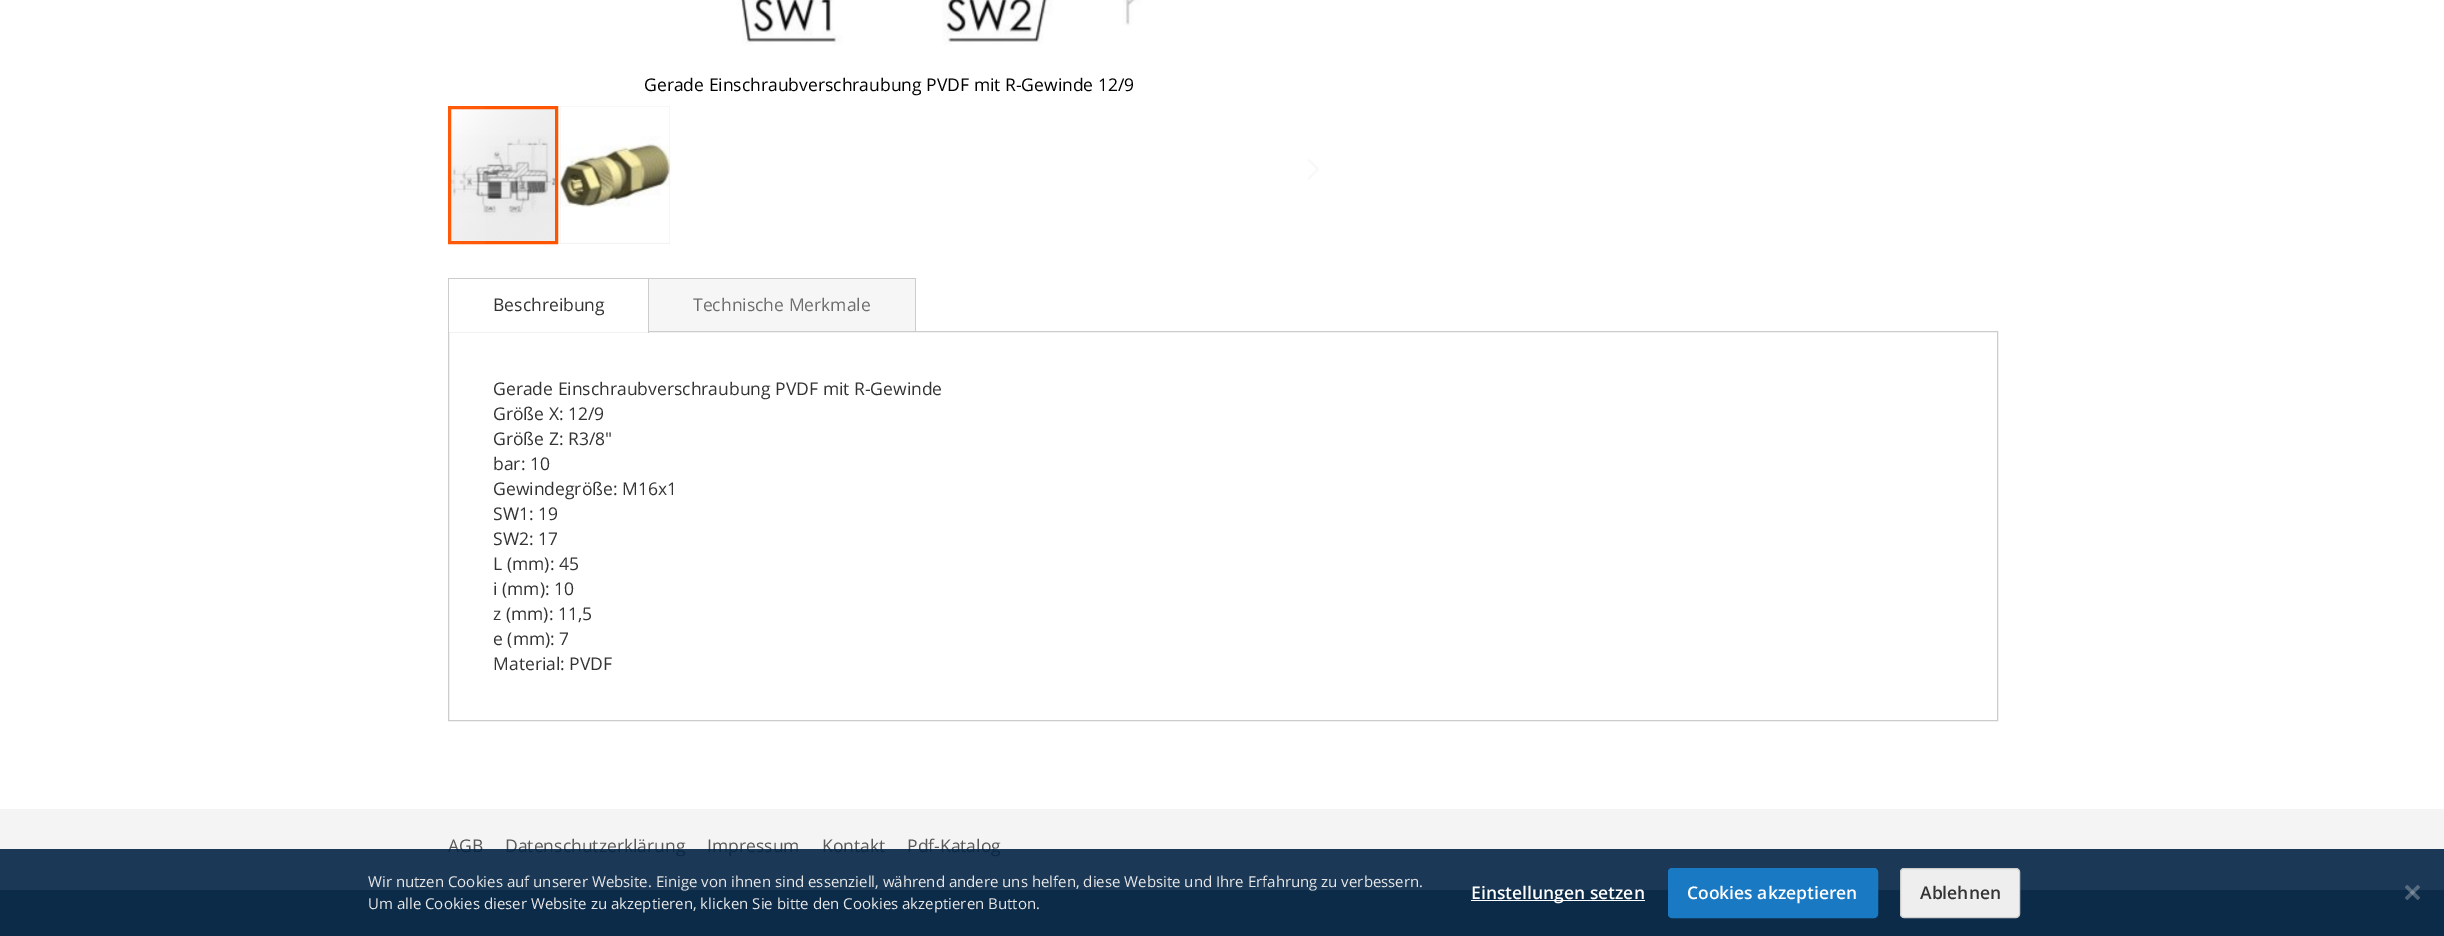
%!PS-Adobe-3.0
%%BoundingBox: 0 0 2444 936
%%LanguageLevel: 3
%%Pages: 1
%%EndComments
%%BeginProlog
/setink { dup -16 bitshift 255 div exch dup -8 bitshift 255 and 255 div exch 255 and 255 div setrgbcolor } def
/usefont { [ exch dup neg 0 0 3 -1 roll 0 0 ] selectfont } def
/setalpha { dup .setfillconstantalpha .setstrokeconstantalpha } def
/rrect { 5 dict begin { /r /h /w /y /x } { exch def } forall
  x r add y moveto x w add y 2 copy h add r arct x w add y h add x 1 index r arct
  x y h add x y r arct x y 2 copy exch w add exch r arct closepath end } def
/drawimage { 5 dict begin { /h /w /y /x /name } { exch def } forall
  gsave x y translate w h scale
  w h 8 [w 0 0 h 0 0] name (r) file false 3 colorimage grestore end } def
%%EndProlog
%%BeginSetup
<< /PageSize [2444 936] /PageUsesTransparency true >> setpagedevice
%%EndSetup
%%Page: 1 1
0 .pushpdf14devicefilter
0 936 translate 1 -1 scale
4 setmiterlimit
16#FFFFFF setink
0 0 2444 936 rectfill
(img1.raw) 737 0 405 45 drawimage
/OpenSans-Regular 17.5 usefont
16#000000 setink
644 91 moveto (Gerade Einschraubverschraubung PVDF mit R-Gewinde 12/9) show
(img2.raw) 447 106 108 138 drawimage
16#FF5501 setink
3 setlinewidth
449.5 107.5 107 135 rectstroke
16#EBEBEB setink
560 106 110 138 rectfill
(img3.raw) 559 106 112 138 drawimage
0.03 setalpha
16#FFFFFF setink
448 106 37 138 rectfill
1 setalpha
(img4.raw) 461 165 11 21 drawimage
(img5.raw) 1308 159 11 21 drawimage
16#CCCCCC setink
1 setlinewidth
448.5 331.5 1549 389 rectstroke
[
    [449 331 199 1 16#FFFFFF]
    [448 278 468 1 16#CCCCCC]
    [648 278 1 55 16#CCCCCC]
    [448 278 1 55 16#CCCCCC]
] { aload pop setink rectfill } forall
16#333333 setink
493 311 moveto (Beschreibung) show
16#F6F6F6 setink
649 279 266 52 rectfill
16#CCCCCC setink
915 278 1 53 rectfill
16#6D6D6D setink
693 311 moveto (Technische Merkmale) show
16#333333 setink
[
    [(Gerade Einschraubverschraubung PVDF mit R-Gewinde) 493 395]
    [(Größe X: 12/9) 493 420]
    [(Größe Z: R3/8") 493 445]
    [(bar: 10) 493 470]
    [(Gewindegröße: M16x1) 493 495]
    [(SW1: 19) 493 520]
    [(SW2: 17) 493 545]
    [(L \(mm\): 45) 493 570]
    [(i \(mm\): 10) 493 595]
    [(z \(mm\): 11,5) 493 620]
    [(e \(mm\): 7) 493 645]
    [(Material: PVDF) 493 670]
] { aload pop moveto show } forall
16#F4F4F4 setink
0 809 2444 81 rectfill
16#575757 setink
[
    [(AGB) 448 852]
    [(Datenschutzerklärung) 505 852]
    [(Impressum) 707 852]
    [(Kontakt) 822 852]
    [(Pdf-Katalog) 907 852]
] { aload pop moveto show } forall
16#6E716E setink
0 890 2444 46 rectfill
0.89 setalpha
16#002244 setink
0 849 2444 87 rectfill
/OpenSans-Regular 15 usefont
1 setalpha
16#E6E6E6 setink
368 887 moveto (Wir nutzen Cookies auf unserer Website. Einige von ihnen sind essenziell, während andere uns helfen, diese Website und Ihre Erfahrung zu verbessern.) show
368 909 moveto (Um alle Cookies dieser Website zu akzeptieren, klicken Sie bitte den Cookies akzeptieren Button.) show
16#FFFFFF setink
1471 900 174 1 rectfill
/OpenSans-SemiBold 17.5 usefont
1471 899 moveto (Einstellungen setzen) show
16#1979C3 setink
1668.5 868.5 209 49 3.5 rrect gsave fill grestore
stroke
16#FFFFFF setink
1687 899 moveto (Cookies akzeptieren) show
16#EEEEEE setink
1900.5 868.5 119 49 3.5 rrect gsave fill grestore
16#CCCCCC setink
stroke
16#333333 setink
1920 899 moveto (Ablehnen) show
0.3 setalpha
16#E6E6E6 setink
2408 885.5 moveto 2419.5 897 lineto 2420 897.5 2420 898 2419.5 898.5 curveto 2418.5 899.5 lineto 2418 900 2417.5 900 2417 899.5 curveto 2405.5 888 lineto 2405 887.5 2405 887 2405.5 886.5 curveto 2406.5 885.5 lineto 2407 885 2407.5 885 2408 885.5 curveto closepath fill
2405.5 897 moveto 2417 885.5 lineto 2417.5 885 2418 885 2418.5 885.5 curveto 2419.5 886.5 lineto 2420 887 2420 887.5 2419.5 888 curveto 2408 899.5 lineto 2407.5 900 2407 900 2406.5 899.5 curveto 2405.5 898.5 lineto 2405 898 2405 897.5 2405.5 897 curveto closepath fill
.poppdf14devicefilter showpage
%%EOF
